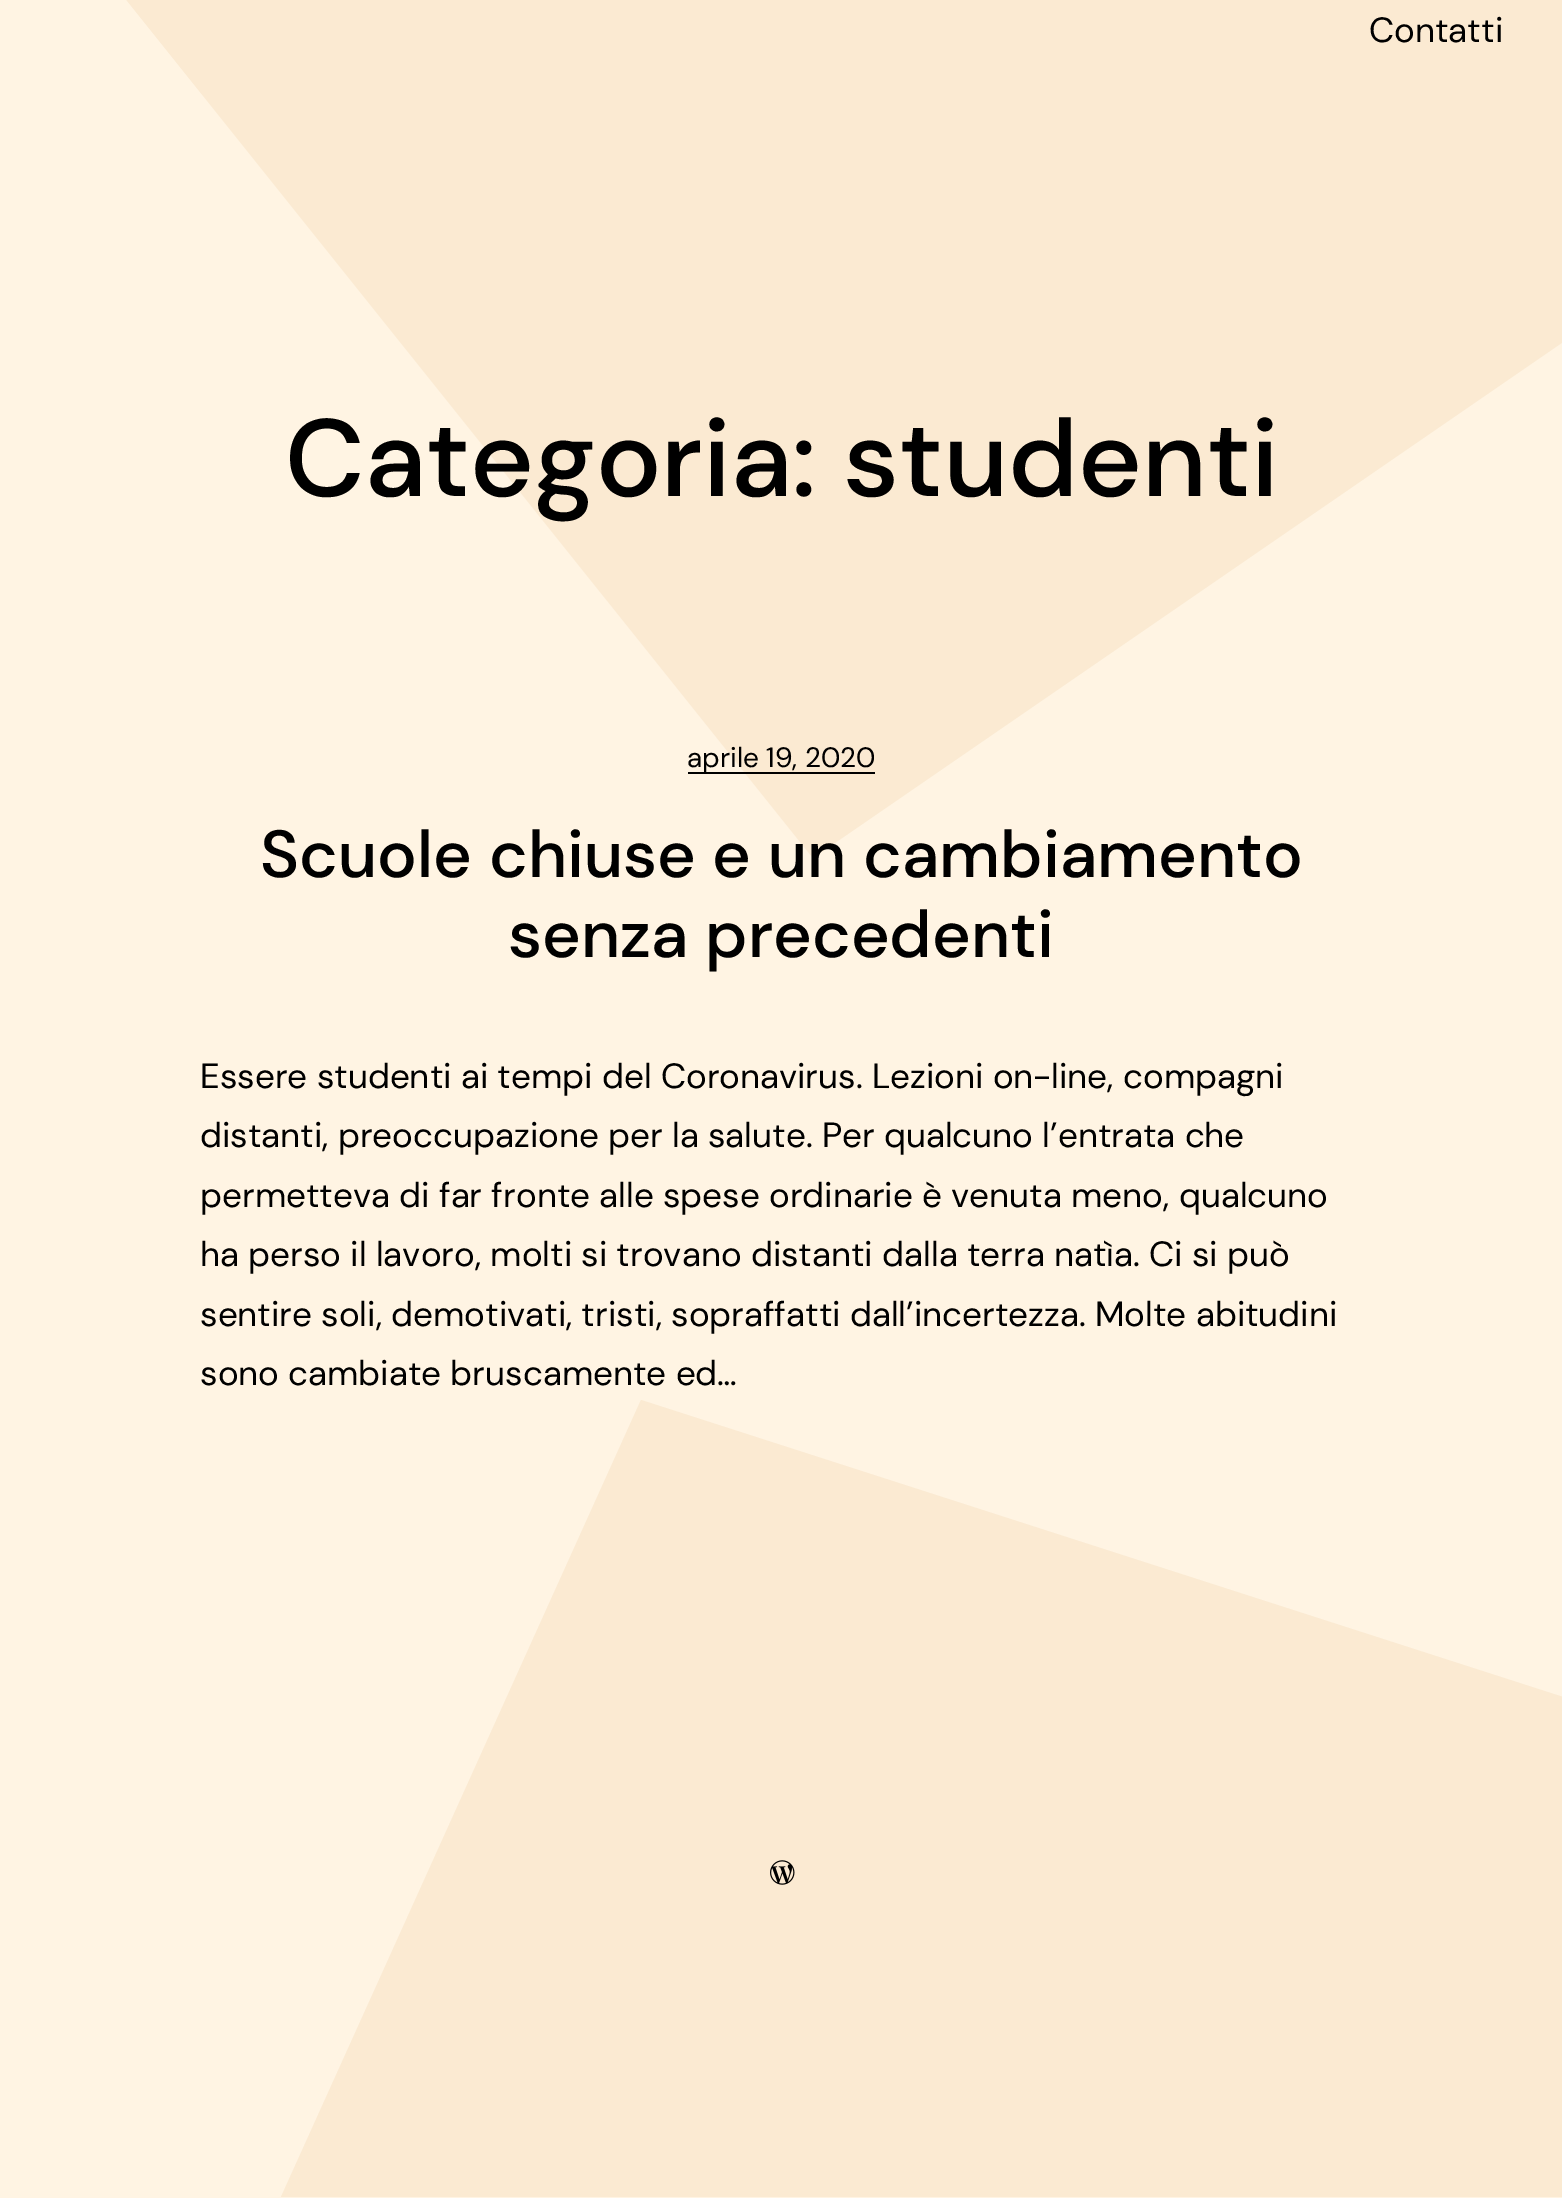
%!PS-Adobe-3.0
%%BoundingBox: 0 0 1562 2198
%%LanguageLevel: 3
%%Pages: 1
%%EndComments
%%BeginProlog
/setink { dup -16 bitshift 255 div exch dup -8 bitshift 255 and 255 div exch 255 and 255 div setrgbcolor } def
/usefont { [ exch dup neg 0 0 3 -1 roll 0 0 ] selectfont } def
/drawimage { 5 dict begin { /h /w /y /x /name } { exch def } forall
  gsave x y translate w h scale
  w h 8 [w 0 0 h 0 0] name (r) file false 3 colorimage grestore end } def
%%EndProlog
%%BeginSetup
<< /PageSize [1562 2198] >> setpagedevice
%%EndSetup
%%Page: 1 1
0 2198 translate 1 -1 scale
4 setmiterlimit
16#FFF4E3 setink
0 0 1562 2198 rectfill
16#FBEAD2 setink
0 -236 moveto 0 -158 lineto 813 858 lineto 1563 342 lineto 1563 -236 lineto closepath fill
/DMSans-Regular 35 usefont
16#000000 setink
1369 42 moveto (Contatti) show
/DMSans-Medium 109.5 usefont
285 496 moveto (Categoria: studenti) show
688 772 187 2 rectfill
/DMSans-Regular 28 usefont
687 767 moveto (aprile 19, 2020) show
/DMSans-Medium 66.5 usefont
260 877 moveto (Scuole chiuse e un cambiamento) show
508 957 moveto (senza precedenti) show
/DMSans-Regular 35 usefont
[
    [(Essere studenti ai tempi del Coronavirus. Lezioni on-line, compagni) 200 1088]
    [(distanti, preoccupazione per la salute. Per qualcuno l’entrata che) 200 1147]
    [(permetteva di far fronte alle spese ordinarie è venuta meno, qualcuno) 200 1207]
    [(ha perso il lavoro, molti si trovano distanti dalla terra natìa. Ci si può) 200 1266]
    [(sentire soli, demotivati, tristi, sopraffatti dall’incertezza. Molte abitudini) 200 1326]
    [(sono cambiate bruscamente ed…) 200 1385]
] { aload pop moveto show } forall
16#FBEAD2 setink
641 1400 moveto 281 2197 lineto 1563 2197 lineto 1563 1697 lineto closepath fill
(img1.raw) 770 1860 25 25 drawimage
showpage
%%EOF
